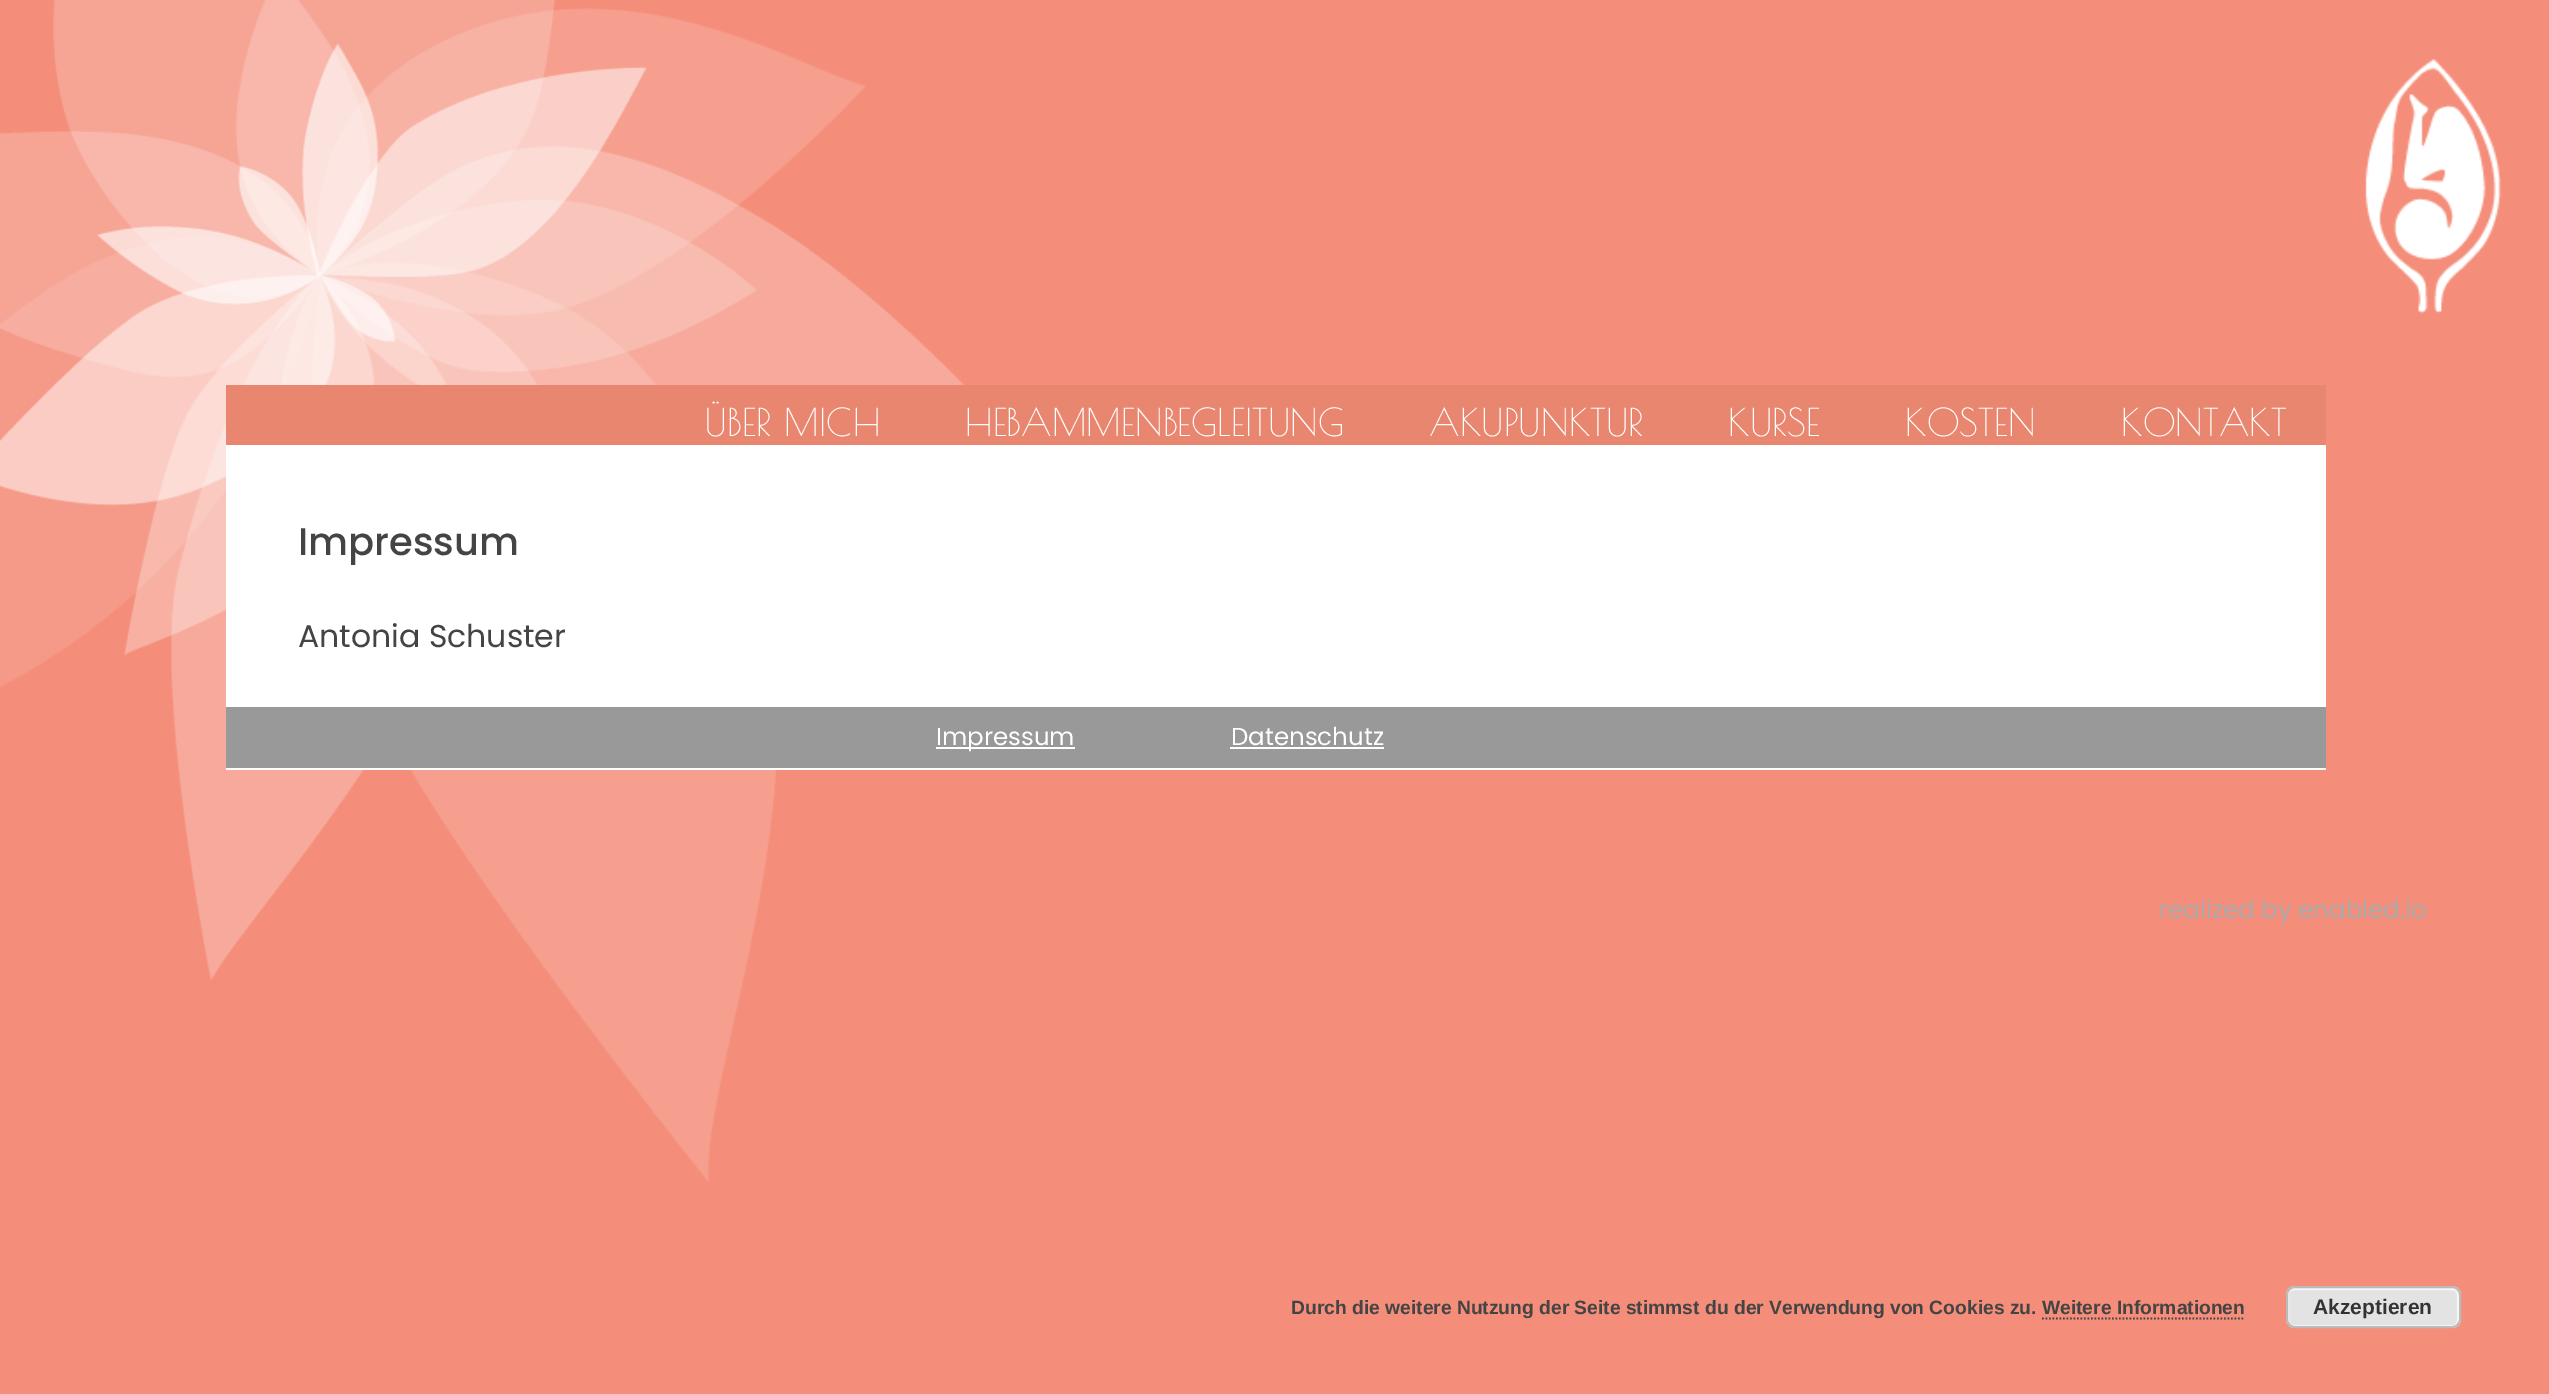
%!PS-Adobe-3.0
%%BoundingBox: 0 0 2549 1394
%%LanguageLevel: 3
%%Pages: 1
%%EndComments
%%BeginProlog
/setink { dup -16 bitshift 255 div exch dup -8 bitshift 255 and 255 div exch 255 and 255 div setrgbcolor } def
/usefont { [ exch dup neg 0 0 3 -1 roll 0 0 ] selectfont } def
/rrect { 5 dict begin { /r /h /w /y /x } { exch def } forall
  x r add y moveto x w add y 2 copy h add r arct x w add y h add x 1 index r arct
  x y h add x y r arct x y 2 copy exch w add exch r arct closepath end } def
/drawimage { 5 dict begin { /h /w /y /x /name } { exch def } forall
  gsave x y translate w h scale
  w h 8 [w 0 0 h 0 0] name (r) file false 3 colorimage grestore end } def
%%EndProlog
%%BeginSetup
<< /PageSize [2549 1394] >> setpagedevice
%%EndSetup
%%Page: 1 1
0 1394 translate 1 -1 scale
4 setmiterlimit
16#F48E7A setink
0 0 2549 1394 rectfill
(img1.raw) 0 0 965 1182 drawimage
(img2.raw) 2365 59 137 255 drawimage
16#FFFFFF setink
226 445 2100 325 rectfill
16#E9866F setink
226 385 2100 60 rectfill
/PoiretOne-Regular 37.75 usefont
16#FFFFFF setink
[
    [(ÜBER MICH) 704 436]
    [(HEBAMMENBEGLEITUNG) 965 436]
    [(AKUPUNKTUR) 1429 436]
    [(KURSE) 1728 436]
    [(KOSTEN) 1905 436]
    [(KONTAKT) 2121 436]
] { aload pop moveto show } forall
/Poppins-Medium 38.5 usefont
16#444444 setink
298 555 moveto (Impressum) show
/Poppins-Regular 31.5 usefont
298 647 moveto (Antonia Schuster) show
16#999999 setink
226 707 2100 61 rectfill
16#FFFFFF setink
936 747 139 2 rectfill
/Poppins-Regular 24.5 usefont
936 745 moveto (Impressum) show
1231 745 moveto (Datenschutz) show
1230 747 154 2 rectfill
16#AAAAAA setink
2159 918 moveto (realized by enabled.io) show
/LiberationSans-Bold 19.25 usefont
16#444444 setink
1291 1314 moveto (Durch die weitere Nutzung der Seite stimmst du der Verwendung von Cookies zu. Weitere Informationen) show
16#E3E3E3 setink
2286 1286 175 42 9 rrect fill
16#F6F6F6 setink
2 setlinewidth
2288 1289 170 37 6 rrect stroke
16#BBBBBB setink
2287 1287 173 40 8 rrect stroke
/LiberationSans-Bold 21 usefont
16#333333 setink
2313 1314 moveto (Akzeptieren) show
16#444444 setink
1.8 setlinewidth
[1.75 1.75] 0 setdash
2042 1318.5 moveto 2245 1318.5 lineto stroke
showpage
%%EOF
